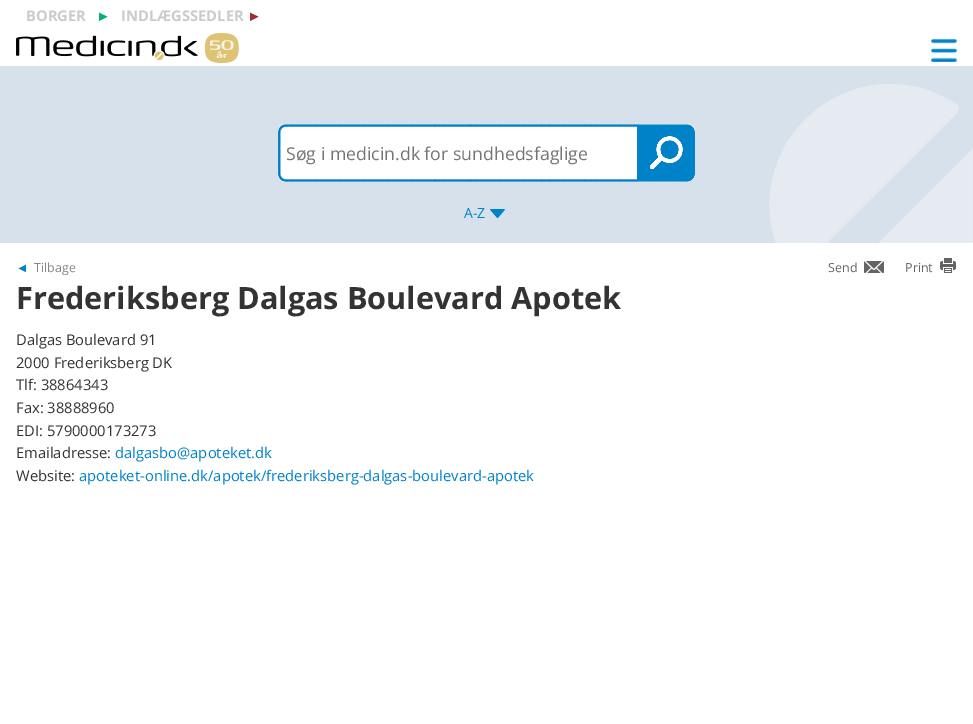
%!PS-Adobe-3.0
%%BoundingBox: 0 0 973 724
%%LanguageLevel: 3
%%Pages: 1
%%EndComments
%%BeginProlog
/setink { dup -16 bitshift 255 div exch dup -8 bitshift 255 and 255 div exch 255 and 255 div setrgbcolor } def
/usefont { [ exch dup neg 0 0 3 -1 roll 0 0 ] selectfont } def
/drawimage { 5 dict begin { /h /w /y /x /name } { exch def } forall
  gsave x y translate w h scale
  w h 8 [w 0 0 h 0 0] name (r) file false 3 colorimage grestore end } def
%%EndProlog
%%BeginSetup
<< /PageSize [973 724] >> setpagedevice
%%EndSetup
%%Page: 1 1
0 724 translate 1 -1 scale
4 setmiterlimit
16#FFFFFF setink
0 0 973 724 rectfill
/OpenSans-Bold 14.75 usefont
16#CBCBCB setink
26 21 moveto (BORGER) show
/LiberationSans-Bold 14.75 usefont
16#05AF7A setink
96 21 moveto (►) show
/OpenSans-Bold 14.75 usefont
16#CBCBCB setink
121 21 moveto (INDLÆGSSEDLER) show
/LiberationSans-Bold 14.75 usefont
16#A02D32 setink
247 21 moveto (►) show
(img1.raw) 16 33 223 30 drawimage
(img2.raw) 931 38 26 24 drawimage
16#D7E1EB setink
0 66 973 177 rectfill
(img3.raw) 769 84 204 159 drawimage
16#FFFFFF setink
285 124 moveto 638 124 lineto 638 182 lineto 285 182 lineto 281 182 278 179 278 175 curveto 278 131 lineto 278 127 281 124 285 124 curveto closepath fill
(img4.raw) 278 124 359 58 drawimage
/OpenSans-Regular 17.7 usefont
16#757575 setink
286 160 moveto (Søg i medicin.dk for sundhedsfaglige) show
(img5.raw) 637 124 58 58 drawimage
/OpenSans-Regular 14 usefont
16#0082C8 setink
464 218 moveto (A-Z) show
(img6.raw) 490 209 15 9 drawimage
/LiberationSans-Regular 12.5 usefont
16 272 moveto (◄) show
/OpenSans-Regular 12.5 usefont
16#868686 setink
34 272 moveto (Tilbage) show
16#646464 setink
828 272 moveto (Send) show
(img7.raw) 864 261 20 12 drawimage
905 272 moveto (Print) show
(img8.raw) 940 258 16 15 drawimage
/OpenSans-Bold 30.7 usefont
16#333333 setink
16 309 moveto (Frederiksberg Dalgas Boulevard Apotek) show
/OpenSans-Regular 14.75 usefont
[
    [(Dalgas Boulevard 91) 16 345]
    [(2000 Frederiksberg DK) 16 368]
    [(Tlf: 38864343) 16 390]
    [(Fax: 38888960) 16 413]
    [(EDI: 5790000173273) 16 436]
    [(Emailadresse:) 16 458]
] { aload pop moveto show } forall
16#0082C8 setink
115 458 moveto (dalgasbo@apoteket.dk) show
16#333333 setink
16 481 moveto (Website:) show
16#0082C8 setink
79 481 moveto (apoteket-online.dk/apotek/frederiksberg-dalgas-boulevard-apotek) show
showpage
%%EOF
